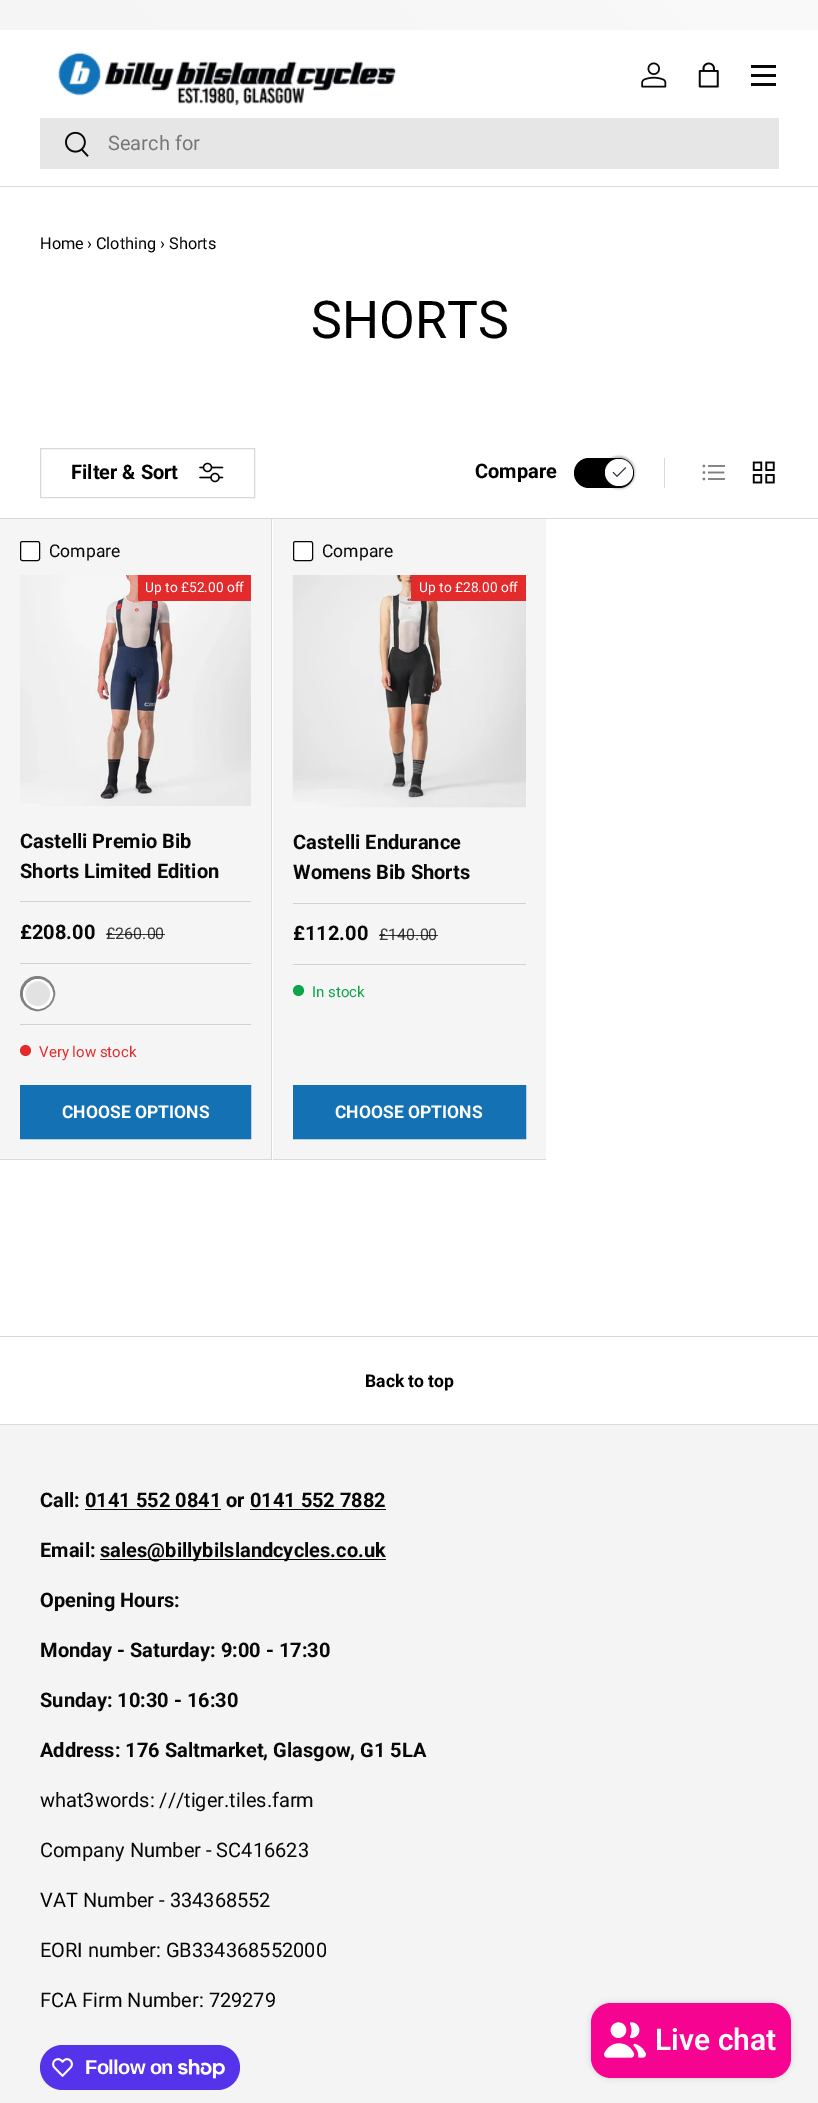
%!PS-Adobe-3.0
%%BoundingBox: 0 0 818 2103
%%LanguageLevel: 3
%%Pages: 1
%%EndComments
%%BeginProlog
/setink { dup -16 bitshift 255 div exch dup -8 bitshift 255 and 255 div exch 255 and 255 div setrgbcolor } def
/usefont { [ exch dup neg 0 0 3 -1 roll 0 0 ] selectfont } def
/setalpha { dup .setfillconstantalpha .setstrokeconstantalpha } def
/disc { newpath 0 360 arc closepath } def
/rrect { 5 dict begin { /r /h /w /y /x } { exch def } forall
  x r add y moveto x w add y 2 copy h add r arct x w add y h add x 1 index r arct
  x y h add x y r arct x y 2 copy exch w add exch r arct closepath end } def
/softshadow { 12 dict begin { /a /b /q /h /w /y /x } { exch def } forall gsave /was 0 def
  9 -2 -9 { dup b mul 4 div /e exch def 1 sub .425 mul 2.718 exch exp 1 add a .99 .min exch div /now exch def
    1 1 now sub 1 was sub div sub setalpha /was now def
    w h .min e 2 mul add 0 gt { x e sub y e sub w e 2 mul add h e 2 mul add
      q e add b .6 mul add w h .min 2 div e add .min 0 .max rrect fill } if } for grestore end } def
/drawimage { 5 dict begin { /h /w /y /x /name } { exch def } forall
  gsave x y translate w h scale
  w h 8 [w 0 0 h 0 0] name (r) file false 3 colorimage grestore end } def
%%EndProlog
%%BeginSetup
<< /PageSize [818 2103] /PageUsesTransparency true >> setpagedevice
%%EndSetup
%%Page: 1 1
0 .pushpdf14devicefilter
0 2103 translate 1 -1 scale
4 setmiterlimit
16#FFFFFF setink
0 0 818 2103 rectfill
gsave 0 0 moveto 818 0 lineto 818 30 lineto 0 30 lineto closepath clip newpath
<< /ShadingType 2 /ColorSpace /DeviceRGB /Coords [190 227 629 -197] /Extend [true true] /Function << /FunctionType 3 /Domain [0 1] /Functions [<< /FunctionType 2 /Domain [0 1] /C0 [0.961 0.961 0.961] /C1 [0.961 0.961 0.961] /N 1 >> << /FunctionType 2 /Domain [0 1] /C0 [0.961 0.961 0.961] /C1 [0.976 0.976 0.976] /N 1 >> << /FunctionType 2 /Domain [0 1] /C0 [0.976 0.976 0.976] /C1 [0.976 0.976 0.976] /N 1 >>] /Bounds [0.13 0.86] /Encode [0 1 0 1 0 1] >> >> shfill grestore
16#DADADA setink
0 186 818 1 rectfill
(img1.raw) 58 52 339 54 drawimage
(img2.raw) 641 62 26 26 drawimage
(img3.raw) 698 62 21 26 drawimage
[
    [751 65 25 3 16#070707]
    [751 83 25 3 16#070707]
    [751 74 25 3 16#070707]
    [40 118 739 51 16#E6E6E6]
] { aload pop setink rectfill } forall
(img4.raw) 65 131 24 26 drawimage
/Roboto-Regular 20 usefont
16#777777 setink
108 150 moveto (Search for) show
/Roboto-Regular 16.25 usefont
16#000000 setink
[
    [(Home) 40 249]
    [(› Clothing) 87 249]
    [(› Shorts) 160 249]
] { aload pop moveto show } forall
/Roboto-Regular 52 usefont
311 338 moveto (SHORTS) show
16#D9D9D9 setink
40.5 448.5 214 49 rectstroke
/Roboto-Bold 20 usefont
16#000000 setink
71 479 moveto (Filter & Sort) show
(img5.raw) 199 462 25 21 drawimage
574 458 60 30 15 rrect fill
603 456 32 33 16 1 0.25 softshadow
16#FFFFFF setink
605 459 28 27 13.5 rrect fill
(img6.raw) 612 467 15 10 drawimage
16#000000 setink
475 478 moveto (Compare) show
16#D9D9D9 setink
664 458 1 30 rectfill
(img7.raw) 702 464 23 17 drawimage
(img8.raw) 752 461 23 23 drawimage
0 518 818 1 rectfill
272 519 moveto 272 1160 lineto 271 1159 lineto 271 519 lineto closepath fill
0.15 setalpha
16#000000 setink
272 1160 moveto 0 1160 lineto 0 1159 lineto 271 1159 lineto closepath fill
1 setalpha
16#F5F5F5 setink
0 519 271 640 rectfill
16#FFFFFF setink
20.5 541.5 19 19 2 rrect gsave fill grestore
16#070707 setink
stroke
/Roboto-Regular 17.5 usefont
49 557 moveto (Compare) show
(img9.raw) 20 575 231 231 drawimage
16#E32B2B setink
138 575 113 26 rectfill
/Roboto-Regular 13.75 usefont
16#FFFFFF setink
145 592 moveto (Up to £52.00 off) show
/Roboto-Bold 20 usefont
16#070707 setink
20 848 moveto (Castelli Premio Bib) show
20 878 moveto (Shorts Limited Edition) show
16#D1D1D1 setink
20 901 231 1 rectfill
16#070707 setink
20 939 moveto (£208.00) show
/Roboto-Regular 16 usefont
16#373737 setink
106 939 moveto (£260.00) show
0.8 setalpha
16#070707 setink
106 934 59 1 rectfill
1 setalpha
16#D1D1D1 setink
20 963 231 1 rectfill
16#808080 setink
3 setlinewidth
37.5 993.5 16 disc stroke
16#FFFFFF setink
38 994 13.5 disc stroke
0.08 setalpha
16#070707 setink
37.5 993.5 12.5 disc fill
1 setalpha
16#D1D1D1 setink
20 1024 231 1 rectfill
16#E32B2B setink
25.5 1050.5 5.5 disc fill
/Roboto-Regular 15 usefont
39 1057 moveto (Very low stock) show
gsave 21 1086 moveto 250 1086 lineto 250 1138 lineto 21 1138 lineto closepath clip newpath
<< /ShadingType 2 /ColorSpace /DeviceRGB /Coords [-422 1030 236 1194] /Extend [true true] /Function << /FunctionType 3 /Domain [0 1] /Functions [<< /FunctionType 2 /Domain [0 1] /C0 [0.239 0.557 0.78] /C1 [0.239 0.557 0.78] /N 1 >> << /FunctionType 2 /Domain [0 1] /C0 [0.078 0.443 0.702] /C1 [0.078 0.443 0.702] /N 1 >>] /Bounds [0.6] /Encode [0 1 0 1] >> >> shfill grestore
16#1471B3 setink
1 setlinewidth
20.5 1085.5 230 53 rectstroke
/Roboto-Bold 17.5 usefont
16#FFFFFF setink
62 1118 moveto (CHOOSE OPTIONS) show
16#D9D9D9 setink
273 1159 273 1 rectfill
16#F5F5F5 setink
273 519 273 640 rectfill
16#FFFFFF setink
293.5 541.5 19 19 2 rrect gsave fill grestore
16#070707 setink
stroke
/Roboto-Regular 17.5 usefont
322 557 moveto (Compare) show
(img10.raw) 292 575 234 233 drawimage
16#E32B2B setink
411 575 115 26 rectfill
/Roboto-Regular 13.75 usefont
16#FFFFFF setink
419 592 moveto (Up to £28.00 off) show
/Roboto-Bold 20 usefont
16#070707 setink
293 849 moveto (Castelli Endurance) show
293 879 moveto (Womens Bib Shorts) show
16#D1D1D1 setink
293 903 233 1 rectfill
16#070707 setink
293 940 moveto (£112.00) show
/Roboto-Regular 16 usefont
16#373737 setink
379 940 moveto (£140.00) show
0.8 setalpha
16#070707 setink
379 935 59 1 rectfill
1 setalpha
16#D1D1D1 setink
293 964 233 1 rectfill
16#0DA44A setink
298.5 990.5 5.5 disc fill
/Roboto-Regular 15 usefont
312 997 moveto (In stock) show
gsave 294 1086 moveto 525 1086 lineto 525 1138 lineto 294 1138 lineto closepath clip newpath
<< /ShadingType 2 /ColorSpace /DeviceRGB /Coords [-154 1029 511 1195] /Extend [true true] /Function << /FunctionType 3 /Domain [0 1] /Functions [<< /FunctionType 2 /Domain [0 1] /C0 [0.239 0.557 0.78] /C1 [0.239 0.557 0.78] /N 1 >> << /FunctionType 2 /Domain [0 1] /C0 [0.078 0.443 0.702] /C1 [0.078 0.443 0.702] /N 1 >>] /Bounds [0.6] /Encode [0 1 0 1] >> >> shfill grestore
16#1471B3 setink
293.5 1085.5 232 53 rectstroke
/Roboto-Bold 17.5 usefont
16#FFFFFF setink
335 1118 moveto (CHOOSE OPTIONS) show
16#D9D9D9 setink
0 1336 818 1 rectfill
0 1424 818 1 rectfill
16#000000 setink
365 1387 moveto (Back to top) show
16#F4F4F4 setink
0 1425 818 678 rectfill
/Roboto-Bold 20 usefont
16#070707 setink
40 1507 moveto (Call: 0141 552 0841 or 0141 552 7882) show
85 1509 136 1 rectfill
250 1509 136 1 rectfill
40 1557 moveto (Email:) show
100 1559 286 1 rectfill
[
    [(sales@billybilslandcycles.co.uk) 100 1557]
    [(Opening Hours:) 40 1607]
    [(Monday - Saturday: 9:00 - 17:30) 40 1657]
    [(Sunday: 10:30 - 16:30) 40 1707]
    [(Address: 176 Saltmarket, Glasgow, G1 5LA) 40 1757]
] { aload pop moveto show } forall
/Roboto-Regular 20 usefont
[
    [(what3words: ///tiger.tiles.farm) 40 1807]
    [(Company Number - SC416623) 40 1857]
    [(VAT Number - 334368552) 40 1907]
    [(EORI number: GB334368552000) 40 1957]
    [(FCA Firm Number: 729279) 40 2007]
] { aload pop moveto show } forall
16#5433EB setink
40 2045 200 45 22.5 rrect fill
(img11.raw) 52 2058 21 19 drawimage
/LiberationSans-Bold 20 usefont
16#FFFFFF setink
85 2074 moveto -0.6 0 (Follow on) ashow
(img12.raw) 178 2059 47 20 drawimage
16#000000 setink
591 2003 200 75 20 3 0.15 softshadow
16#F70391 setink
591 2003 200 75 20 rrect fill
(img13.raw) 604 2022 42 36 drawimage
/Roboto-SemiBold 30 usefont
16#FFFFFF setink
655 2050 moveto (Live chat) show
.poppdf14devicefilter showpage
%%EOF
